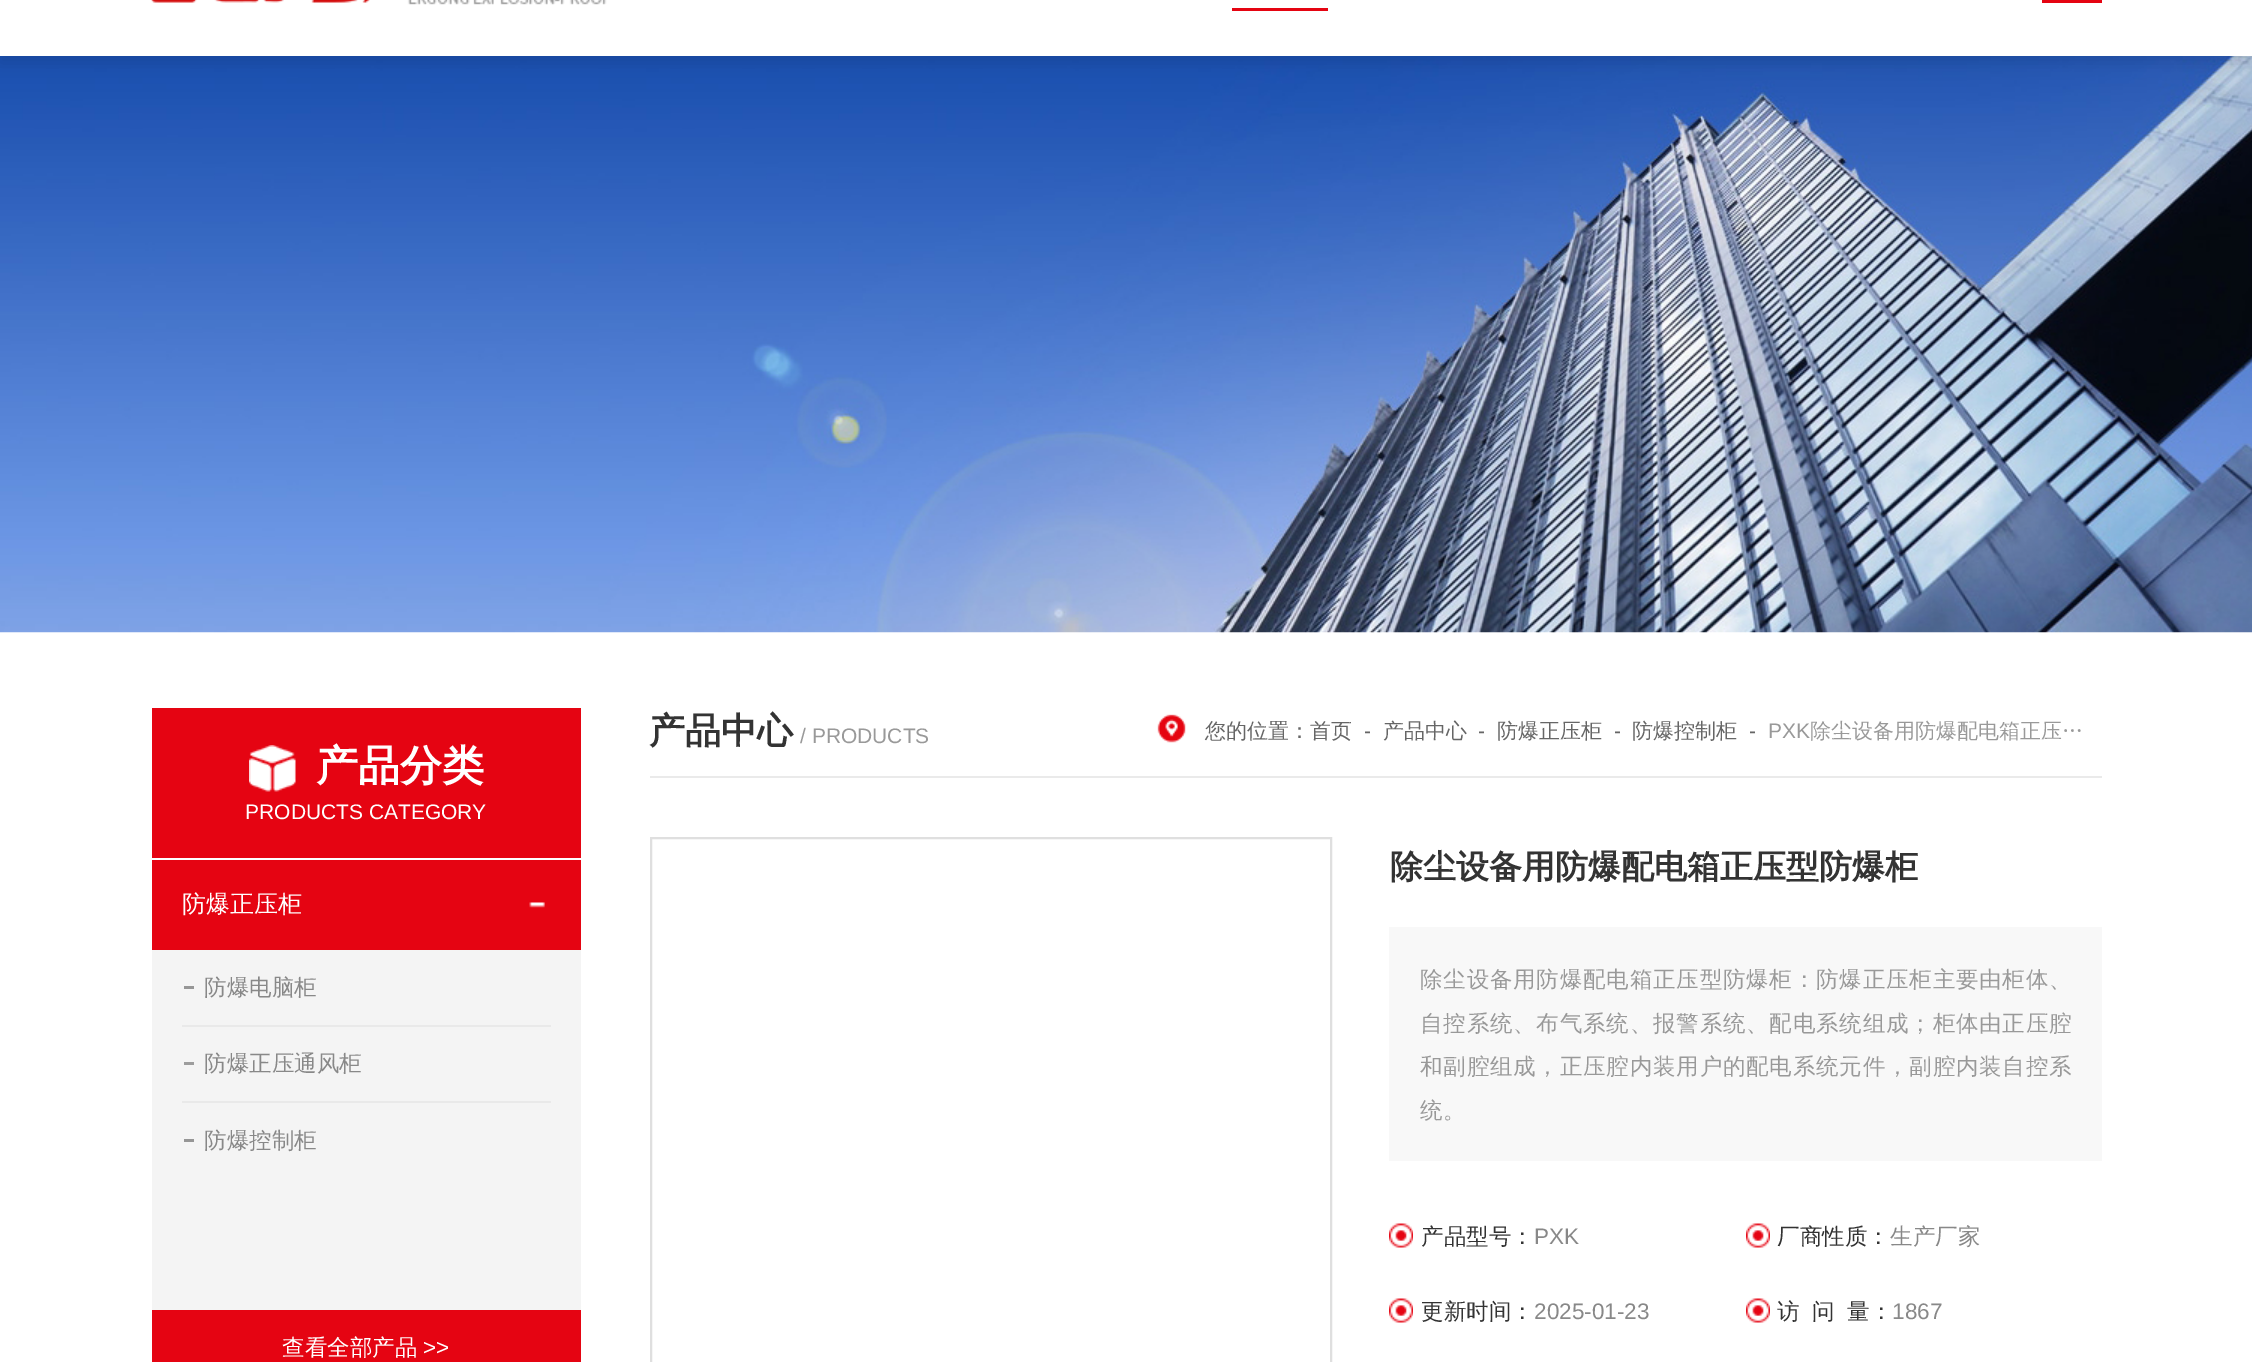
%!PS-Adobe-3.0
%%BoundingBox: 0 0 2252 1362
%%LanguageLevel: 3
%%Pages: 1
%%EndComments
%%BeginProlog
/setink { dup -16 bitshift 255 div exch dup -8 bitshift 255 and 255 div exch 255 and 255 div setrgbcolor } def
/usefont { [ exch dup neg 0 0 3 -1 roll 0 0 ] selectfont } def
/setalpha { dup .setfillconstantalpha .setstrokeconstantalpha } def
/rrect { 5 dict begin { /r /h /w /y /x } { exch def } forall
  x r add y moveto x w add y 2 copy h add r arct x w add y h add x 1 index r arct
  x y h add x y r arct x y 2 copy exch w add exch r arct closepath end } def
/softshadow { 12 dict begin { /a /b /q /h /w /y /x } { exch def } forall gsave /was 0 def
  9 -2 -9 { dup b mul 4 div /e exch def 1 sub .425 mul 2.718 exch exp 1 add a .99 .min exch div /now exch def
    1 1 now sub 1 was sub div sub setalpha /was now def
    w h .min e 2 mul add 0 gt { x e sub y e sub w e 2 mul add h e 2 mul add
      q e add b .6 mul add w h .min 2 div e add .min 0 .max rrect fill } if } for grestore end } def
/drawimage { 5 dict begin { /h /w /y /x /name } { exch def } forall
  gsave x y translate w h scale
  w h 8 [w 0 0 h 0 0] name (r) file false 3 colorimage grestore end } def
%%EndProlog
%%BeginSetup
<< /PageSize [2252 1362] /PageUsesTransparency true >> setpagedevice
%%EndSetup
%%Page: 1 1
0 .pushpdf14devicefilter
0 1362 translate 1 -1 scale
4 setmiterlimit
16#FFFFFF setink
0 0 2252 1362 rectfill
(img2.raw) 0 56 2252 577 drawimage
16#000000 setink
0 -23 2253 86 0 7.5 0.1 softshadow
16#FFFFFF setink
0 0 2252 56 rectfill
(img1.raw) 151 0 456 5 drawimage
[
    [2042 0 60 3 16#E50412]
    [1232 8 96 3 16#E50412]
    [152 708 429 150 16#E50412]
] { aload pop setink rectfill } forall
(img3.raw) 249 745 47 47 drawimage
/WenQuanYiZenHei-Bold 42 usefont
16#FFFFFF setink
316 780 moveto (产品分类) show
/LiberationSans-Regular 21 usefont
245 819 moveto (PRODUCTS CATEGORY) show
16#F4F4F4 setink
152 950 429 360 rectfill
16#E50412 setink
152 860 429 90 rectfill
/WenQuanYiZenHei-Medium 24 usefont
16#FFFFFF setink
182 912 moveto (防爆正压柜) show
(img4.raw) 529 902 16 6 drawimage
16#969696 setink
184 986 10 3 rectfill
/WenQuanYiZenHei-Medium 22.5 usefont
16#888888 setink
204 995 moveto (防爆电脑柜) show
16#9D9D9D setink
184 1062 10 3 rectfill
16#E9E9E9 setink
182 1025 369 2 rectfill
16#888888 setink
204 1071 moveto (防爆正压通风柜) show
16#969696 setink
184 1139 10 3 rectfill
16#E9E9E9 setink
182 1101 369 2 rectfill
16#888888 setink
204 1148 moveto (防爆控制柜) show
16#E50412 setink
152 1310 429 52 rectfill
16#FFFFFF setink
282 1355 moveto (查看全部产品) show
/LiberationSans-Regular 22.5 usefont
423 1355 moveto (>>) show
16#EAEAEA setink
650 776 1452 2 rectfill
/WenQuanYiZenHei-Bold 36 usefont
16#333333 setink
649 743 moveto (产品中心) show
/LiberationSans-Regular 21 usefont
16#999999 setink
800 743 moveto (/ PRODUCTS) show
(img5.raw) 1157 714 29 29 drawimage
/WenQuanYiZenHei-Medium 21 usefont
16#666666 setink
1205 738 moveto (您的位置：首页) show
/LiberationSans-Regular 21 usefont
1364 738 moveto (-) show
/WenQuanYiZenHei-Medium 21 usefont
1383 738 moveto (产品中心) show
/LiberationSans-Regular 21 usefont
1478 738 moveto (-) show
/WenQuanYiZenHei-Medium 21 usefont
1497 738 moveto (防爆正压柜) show
/LiberationSans-Regular 21 usefont
1614 738 moveto (-) show
/WenQuanYiZenHei-Medium 21 usefont
1632 738 moveto (防爆控制柜) show
/LiberationSans-Regular 21 usefont
1749 738 moveto (-) show
16#999999 setink
1768 738 moveto (PXK) show
/WenQuanYiZenHei-Medium 21 usefont
1810 738 moveto (除尘设备用防爆配电箱正压…) show
16#DFDFDF setink
2 setlinewidth
651 838 680 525 rectstroke
/WenQuanYiZenHei-Bold 33 usefont
16#333333 setink
1390 878 moveto (除尘设备用防爆配电箱正压型防爆柜) show
16#F8F8F8 setink
1389 927 713 234 rectfill
/WenQuanYiZenHei-Medium 22.5 usefont
16#999999 setink
1420 987 moveto 0.8 0 (除尘设备用防爆配电箱正压型防爆柜：防爆正压柜主要由柜体、) ashow
1420 1031 moveto 0.8 0 (自控系统、布气系统、报警系统、配电系统组成；柜体由正压腔) ashow
1420 1074 moveto 0.8 0 (和副腔组成，正压腔内装用户的配电系统元件，副腔内装自控系) ashow
1420 1118 moveto (统。) show
(img6.raw) 1389 1223 24 25 drawimage
16#333333 setink
1421 1244 moveto (产品型号：) show
/LiberationSans-Regular 22.5 usefont
16#888888 setink
1534 1244 moveto (PXK) show
(img6.raw) 1746 1223 24 25 drawimage
/WenQuanYiZenHei-Medium 22.5 usefont
16#333333 setink
1777 1244 moveto (厂商性质：) show
16#888888 setink
1890 1244 moveto (生产厂家) show
(img6.raw) 1389 1298 24 25 drawimage
16#333333 setink
1421 1319 moveto (更新时间：) show
/LiberationSans-Regular 22.5 usefont
16#888888 setink
1534 1319 moveto (2025-01-23) show
(img6.raw) 1746 1298 24 25 drawimage
/WenQuanYiZenHei-Medium 22.5 usefont
16#333333 setink
[
    [(访) 1777 1319]
    [(问) 1812 1319]
    [(量：) 1847 1319]
] { aload pop moveto show } forall
/LiberationSans-Regular 22.5 usefont
16#888888 setink
1892 1319 moveto (1867) show
.poppdf14devicefilter showpage
%%EOF
